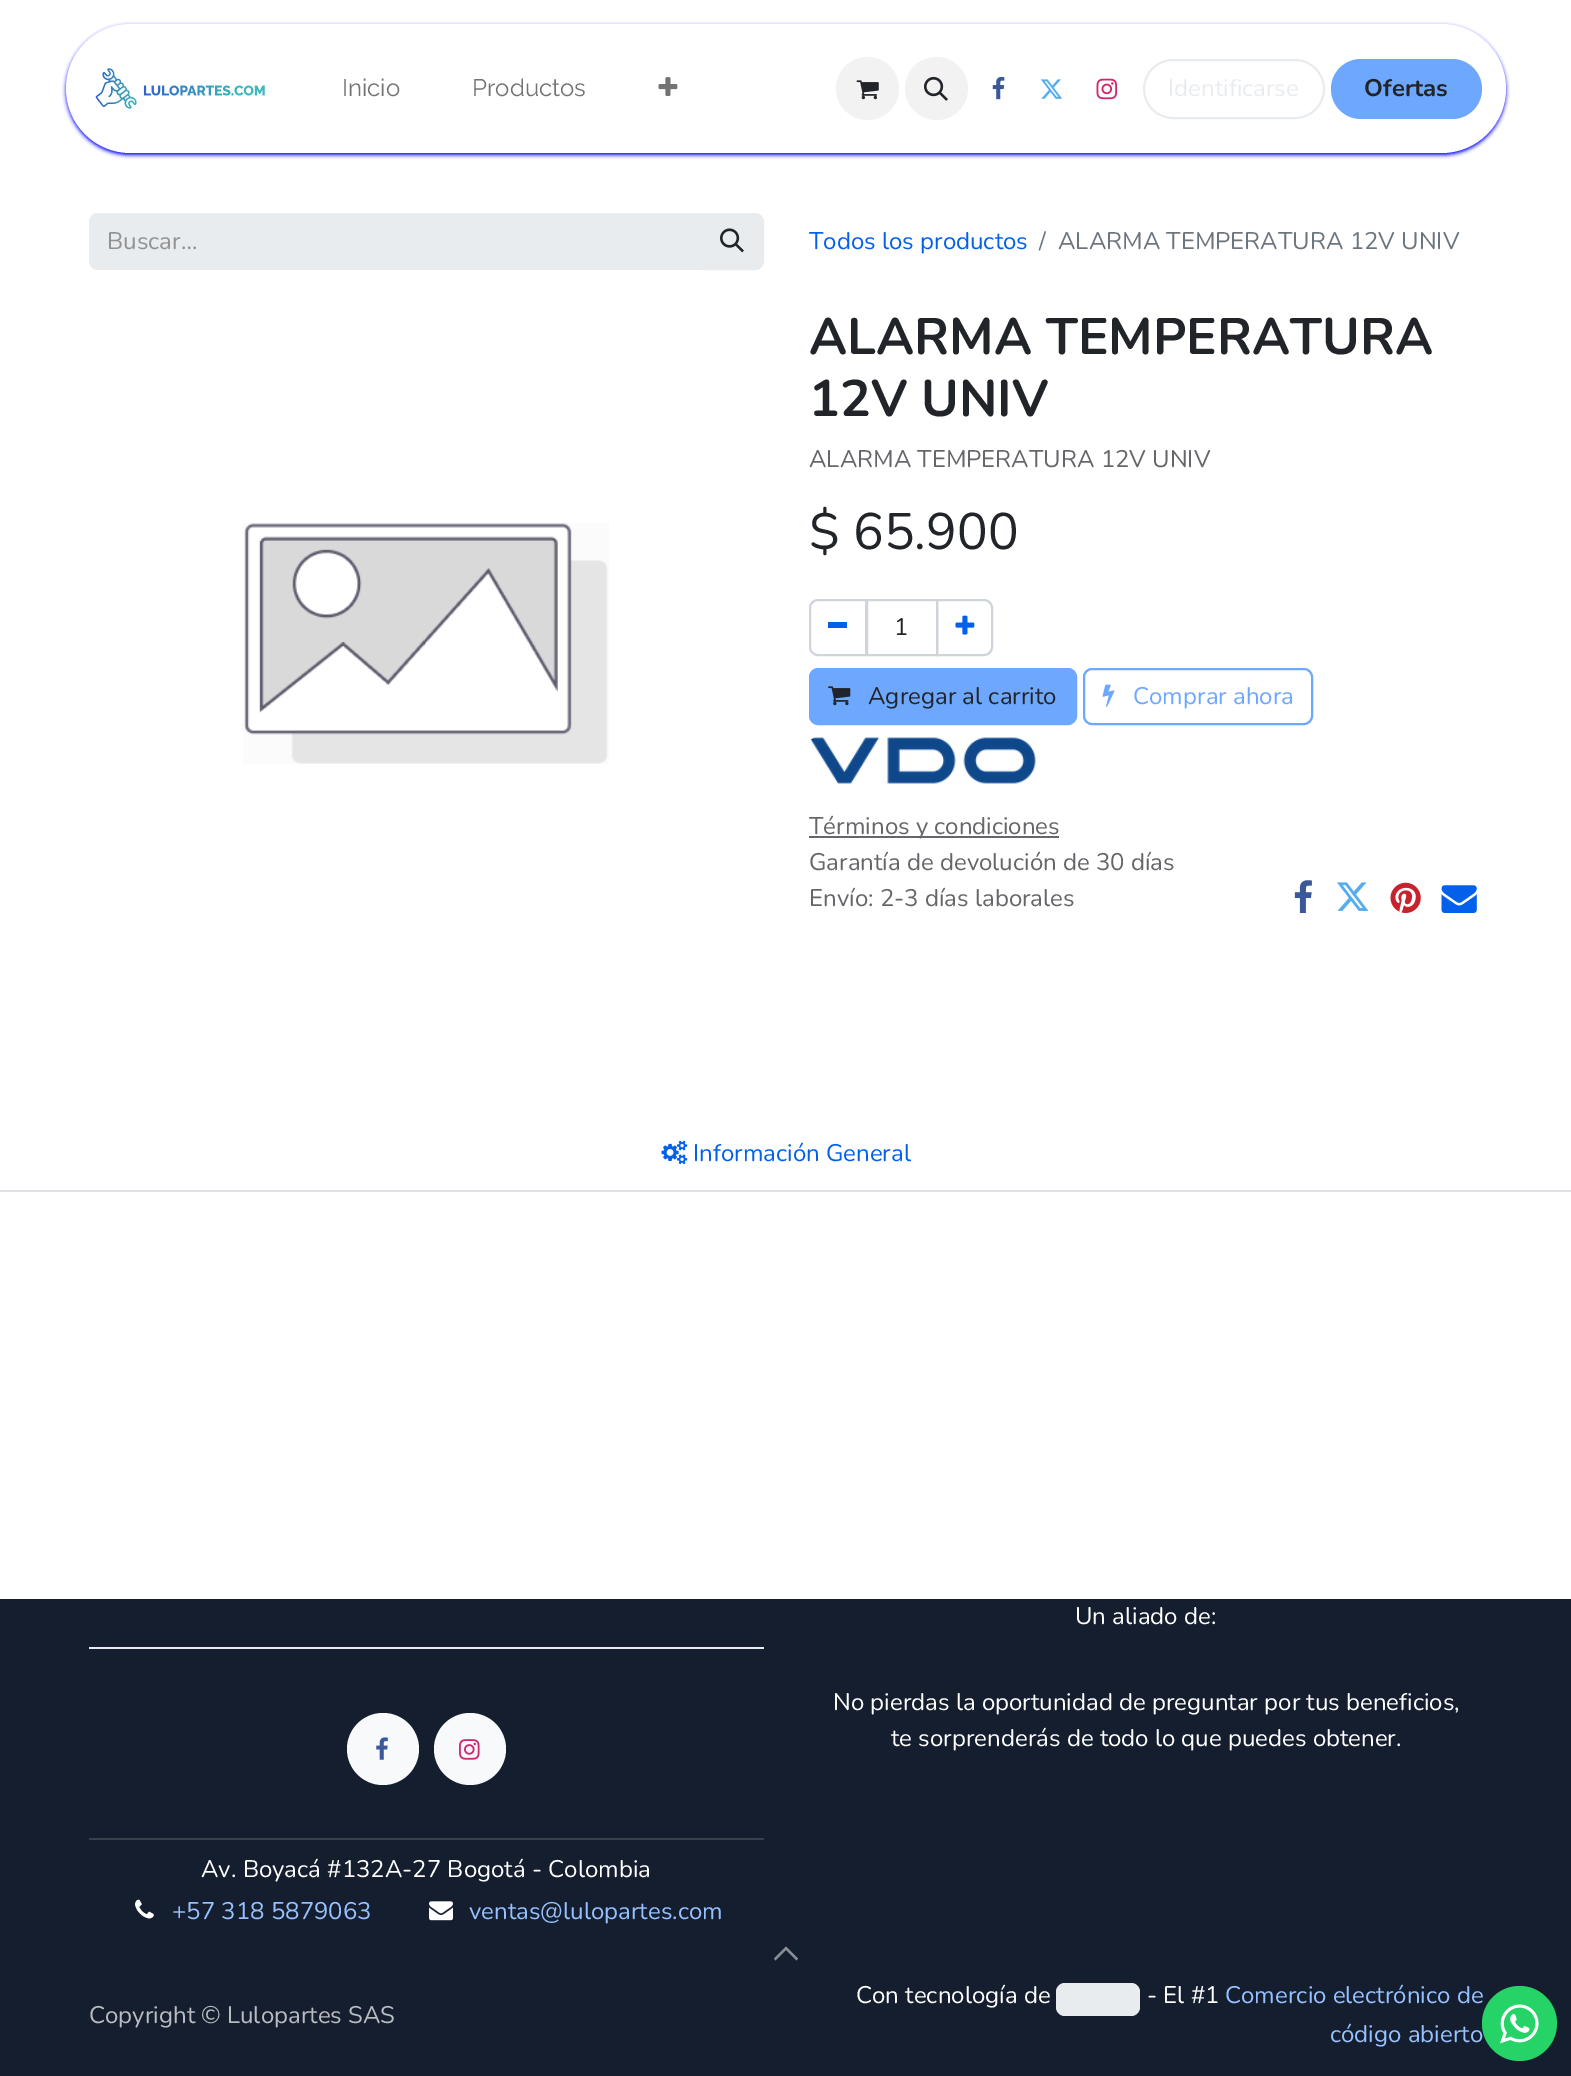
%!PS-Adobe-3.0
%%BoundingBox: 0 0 1571 2076
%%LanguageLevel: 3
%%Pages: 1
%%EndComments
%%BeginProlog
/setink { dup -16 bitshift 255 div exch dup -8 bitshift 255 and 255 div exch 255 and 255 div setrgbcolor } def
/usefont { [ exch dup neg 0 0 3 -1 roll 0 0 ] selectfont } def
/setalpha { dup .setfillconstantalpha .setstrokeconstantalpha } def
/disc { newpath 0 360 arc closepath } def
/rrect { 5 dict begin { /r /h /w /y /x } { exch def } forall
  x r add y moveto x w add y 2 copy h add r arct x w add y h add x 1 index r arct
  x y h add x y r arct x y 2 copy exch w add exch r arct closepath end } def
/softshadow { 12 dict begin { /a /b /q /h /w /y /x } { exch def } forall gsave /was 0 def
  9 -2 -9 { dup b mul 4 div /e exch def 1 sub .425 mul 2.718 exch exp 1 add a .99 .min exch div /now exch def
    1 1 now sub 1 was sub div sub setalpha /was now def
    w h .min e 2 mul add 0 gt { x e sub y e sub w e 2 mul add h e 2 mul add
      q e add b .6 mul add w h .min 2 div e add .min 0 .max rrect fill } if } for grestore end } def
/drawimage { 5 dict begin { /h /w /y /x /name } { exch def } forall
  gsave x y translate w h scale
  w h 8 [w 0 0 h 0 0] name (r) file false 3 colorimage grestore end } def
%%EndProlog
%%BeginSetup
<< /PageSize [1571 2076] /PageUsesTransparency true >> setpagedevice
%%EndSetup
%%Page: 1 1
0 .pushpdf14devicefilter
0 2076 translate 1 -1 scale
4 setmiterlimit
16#FFFFFF setink
0 0 1571 2076 rectfill
16#0000FF setink
66 26 1440 129 64.5 2 1 softshadow
16#FFFFFF setink
66 24 1440 129 64.5 rrect fill
(img1.raw) 95 68 170 41 drawimage
/Raleway-Regular 24 usefont
16#737373 setink
342 96 moveto (Inicio) show
472 96 moveto (Productos) show
(img2.raw) 658 77 20 19 drawimage
16#F2F2F2 setink
867.5 88.5 31.5 disc fill
(img3.raw) 856 80 23 20 drawimage
936.5 88.5 31.5 disc fill
(img4.raw) 924 76 24 25 drawimage
(img5.raw) 992 76 13 24 drawimage
(img6.raw) 1040 79 23 20 drawimage
(img7.raw) 1096 78 22 22 drawimage
16#E9ECEF setink
2 setlinewidth
1144 60 180 58 29 rrect stroke
/Nunito-Regular 24 usefont
1168 96 moveto (Identificarse) show
16#6EA8FE setink
1331 59 151 60 30 rrect fill
/Nunito-Bold 24 usefont
16#212529 setink
1364 96 moveto (Ofertas) show
16#E9ECEF setink
98 213 moveto 702 213 lineto 702 270 lineto 98 270 lineto 93 270 89 266 89 261 curveto 89 222 lineto 89 217 93 213 98 213 curveto closepath fill
/Nunito-Regular 24 usefont
16#909294 setink
107 249 moveto (Buscar…) show
16#E9ECEF setink
702 214 moveto 755 214 lineto 759.5 214 763 217.5 763 222 curveto 763 261 lineto 763 265.5 759.5 269 755 269 curveto 702 269 lineto closepath gsave fill grestore
stroke
(img8.raw) 720 228 24 25 drawimage
16#0260EB setink
809 249 moveto (Todos los productos) show
16#6C757D setink
1039 249 moveto (/) show
1058 249 moveto (ALARMA TEMPERATURA 12V UNIV) show
(img9.raw) 243 523 366 241 drawimage
/Nunito-Bold 51.25 usefont
16#212529 setink
809 354 moveto (ALARMA TEMPERATURA) show
809 416 moveto (12V UNIV) show
/Nunito-Regular 24 usefont
16#646669 setink
809 467 moveto (ALARMA TEMPERATURA 12V UNIV) show
/Nunito-Regular 51.25 usefont
16#212529 setink
809 549 moveto ($ 65.900) show
16#CED4DA setink
867 600 70 55 rectstroke
818 600 moveto 866 600 lineto 866 655 lineto 818 655 lineto 813.5 655 810 651.5 810 647 curveto 810 608 lineto 810 603.5 813.5 600 818 600 curveto closepath stroke
16#0260EB setink
828 622 19 6 rectfill
/Nunito-Regular 24 usefont
16#212529 setink
894 635 moveto (1) show
16#CED4DA setink
937 600 moveto 984 600 lineto 988.5 600 992 603.5 992 608 curveto 992 647 lineto 992 651.5 988.5 655 984 655 curveto 937 655 lineto closepath stroke
(img10.raw) 955 615 20 20 drawimage
16#6EA8FE setink
810 669 266 55 8 rrect gsave fill grestore
stroke
(img11.raw) 828 686 23 20 drawimage
16#212529 setink
868 704 moveto (Agregar al carrito) show
16#6EA8FE setink
1084 669 228 55 8 rrect stroke
(img12.raw) 1102 684 13 23 drawimage
1133 704 moveto (Comprar ahora) show
(img13.raw) 810 737 226 47 drawimage
16#646669 setink
809 836 250 2 rectfill
[
    [(Términos y condiciones) 809 834]
    [(Garantía de devolución de 30 días) 809 870]
    [(Envío: 2-3 días laborales) 809 906]
] { aload pop moveto show } forall
(img14.raw) 1294 880 18 33 drawimage
(img15.raw) 1337 882 32 29 drawimage
(img16.raw) 1390 882 31 31 drawimage
(img17.raw) 1441 885 36 28 drawimage
16#DEE2E6 setink
0 1190 1571 2 rectfill
(img18.raw) 661 1140 27 25 drawimage
16#0260EB setink
693 1161 moveto (Información General) show
16#141E2E setink
0 1599 1571 477 rectfill
16#FFFFFF setink
[
    [(Un aliado de:) 1075 1624]
    [(No pierdas la oportunidad de preguntar por tus beneficios,) 833 1710]
    [(te sorprenderás de todo lo que puedes obtener.) 891 1746]
] { aload pop moveto show } forall
16#E9ECEF setink
89 1647 675 2 rectfill
16#F8F9FA setink
383 1749 36 disc fill
(img19.raw) 376 1737 12 23 drawimage
470 1749 36 disc fill
(img20.raw) 459 1739 21 21 drawimage
16#37404D setink
89 1838 675 2 rectfill
16#FFFFFF setink
201 1877 moveto (Av. Boyacá #132A-27 Bogotá - Colombia) show
(img21.raw) 135 1899 19 20 drawimage
16#97C0FE setink
172 1919 moveto (+57 318 5879063) show
(img22.raw) 429 1901 24 20 drawimage
469 1919 moveto (ventas@lulopartes.com) show
16#8A8F97 setink
786 1946.5 moveto 798 1958.5 lineto 796.5 1960.5 lineto 786 1950 lineto 775.5 1960.5 lineto 774 1958.5 lineto closepath fill
16#B9BCC0 setink
89 2023 moveto (Copyright © Lulopartes SAS) show
16#FFFFFF setink
856 2003 moveto (Con tecnología de) show
16#E9ECEF setink
1056 1983 84 33 9 rrect fill
16#FFFFFF setink
1147 2003 moveto (- El #1) show
16#97C0FE setink
1225 2003 moveto (Comercio electrónico de) show
1330 2042 moveto (código abierto) show
16#25D366 setink
1519.5 2023.5 37.5 disc fill
(img23.raw) 1500 2004 39 40 drawimage
.poppdf14devicefilter showpage
%%EOF
